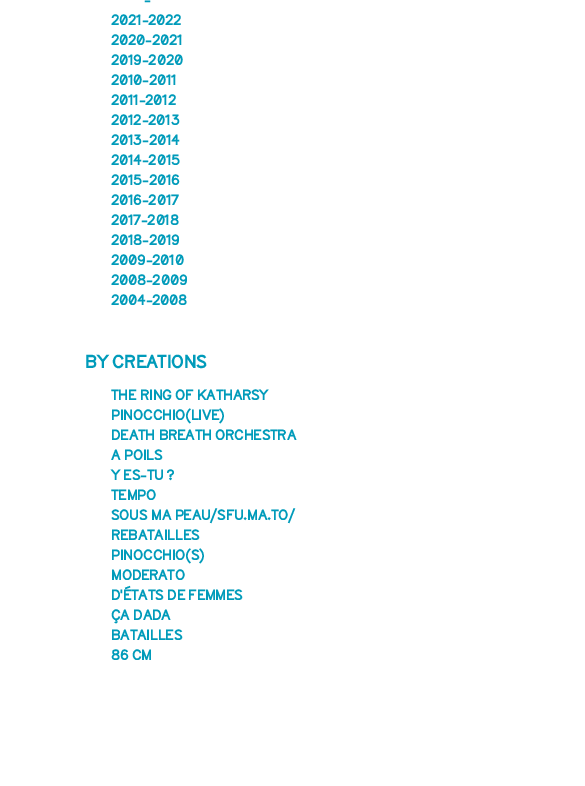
%!PS-Adobe-3.0
%%BoundingBox: 0 0 585 786
%%LanguageLevel: 3
%%Pages: 1
%%EndComments
%%BeginProlog
/setink { dup -16 bitshift 255 div exch dup -8 bitshift 255 and 255 div exch 255 and 255 div setrgbcolor } def
/usefont { [ exch dup neg 0 0 3 -1 roll 0 0 ] selectfont } def
%%EndProlog
%%BeginSetup
<< /PageSize [585 786] >> setpagedevice
%%EndSetup
%%Page: 1 1
0 786 translate 1 -1 scale
4 setmiterlimit
16#FFFFFF setink
0 0 585 786 rectfill
/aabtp-Bold 13.6 usefont
16#009BBA setink
[
    [(-) 144 5]
    [(2021-2022) 111 25]
    [(2020-2021) 111 45]
    [(2019-2020) 111 65]
    [(2010-2011) 111 85]
    [(2011-2012) 111 105]
    [(2012-2013) 111 125]
    [(2013-2014) 111 145]
    [(2014-2015) 111 165]
    [(2015-2016) 111 185]
    [(2016-2017) 111 205]
    [(2017-2018) 111 225]
    [(2018-2019) 111 245]
    [(2009-2010) 111 265]
    [(2008-2009) 111 285]
    [(2004-2008) 111 305]
] { aload pop moveto show } forall
/aabtp-Bold 17 usefont
85 368 moveto (BY CREATIONS) show
/aabtp-Bold 13.6 usefont
[
    [(THE RING OF KATHARSY) 111 400]
    [(PINOCCHIO\(LIVE\)) 111 420]
    [(DEATH BREATH ORCHESTRA) 111 440]
    [(A POILS) 111 460]
    [(Y ES-TU ?) 111 480]
    [(TEMPO) 111 500]
    [(SOUS MA PEAU/SFU.MA.TO/) 111 520]
    [(REBATAILLES) 111 540]
    [(PINOCCHIO\(S\)) 111 560]
    [(MODERATO) 111 580]
    [(D'ÉTATS DE FEMMES) 111 600]
    [(ÇA DADA) 111 620]
    [(BATAILLES) 111 640]
    [(86 CM) 111 660]
] { aload pop moveto show } forall
showpage
%%EOF
